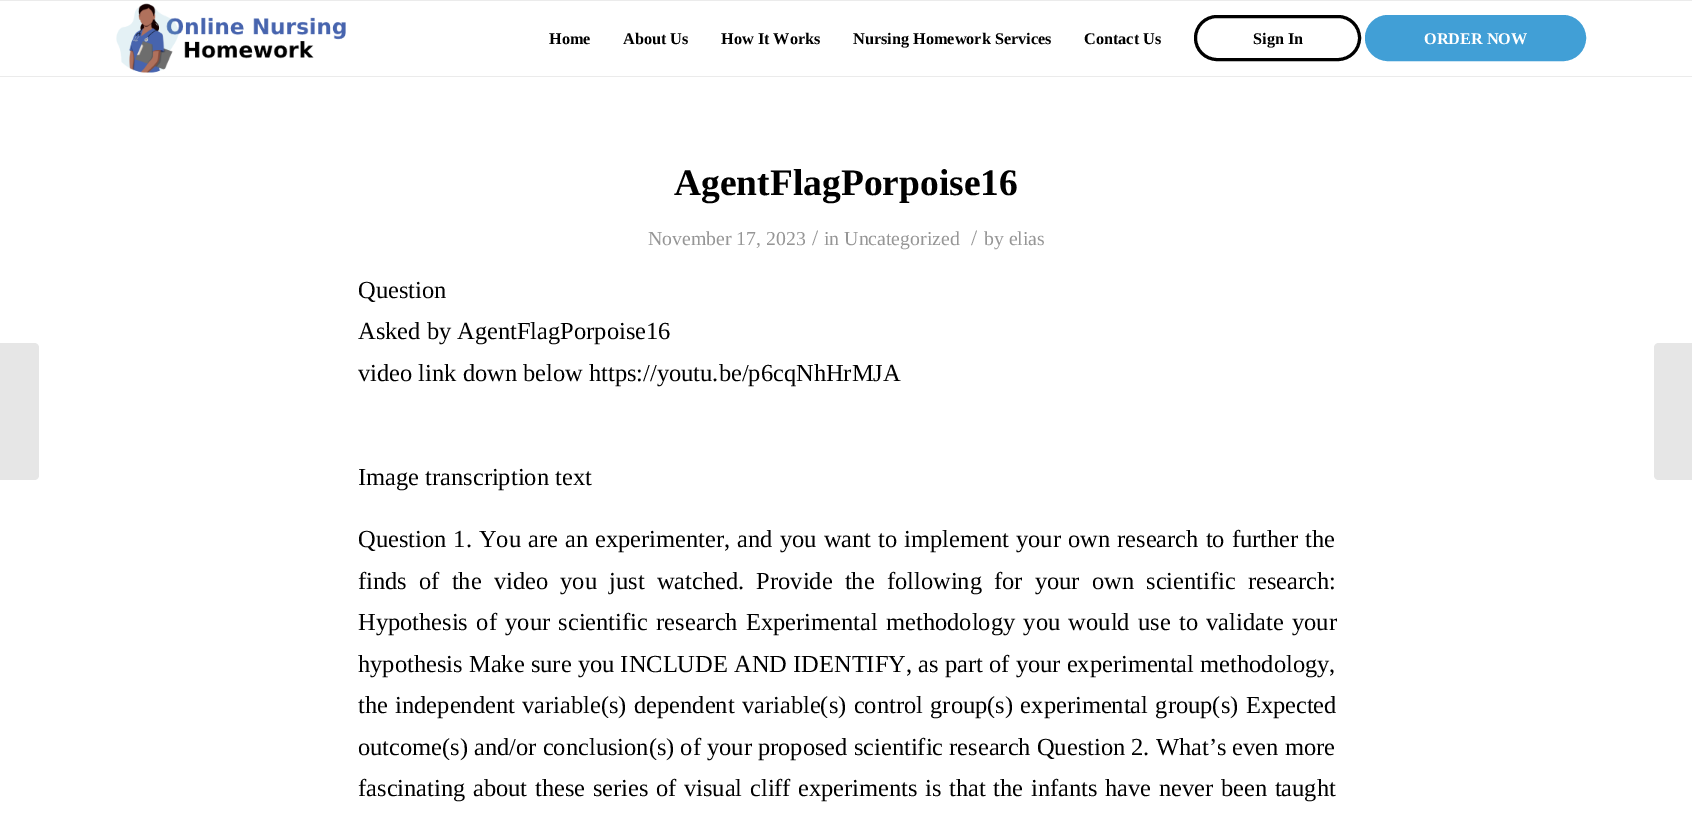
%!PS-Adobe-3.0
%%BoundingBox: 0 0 1692 822
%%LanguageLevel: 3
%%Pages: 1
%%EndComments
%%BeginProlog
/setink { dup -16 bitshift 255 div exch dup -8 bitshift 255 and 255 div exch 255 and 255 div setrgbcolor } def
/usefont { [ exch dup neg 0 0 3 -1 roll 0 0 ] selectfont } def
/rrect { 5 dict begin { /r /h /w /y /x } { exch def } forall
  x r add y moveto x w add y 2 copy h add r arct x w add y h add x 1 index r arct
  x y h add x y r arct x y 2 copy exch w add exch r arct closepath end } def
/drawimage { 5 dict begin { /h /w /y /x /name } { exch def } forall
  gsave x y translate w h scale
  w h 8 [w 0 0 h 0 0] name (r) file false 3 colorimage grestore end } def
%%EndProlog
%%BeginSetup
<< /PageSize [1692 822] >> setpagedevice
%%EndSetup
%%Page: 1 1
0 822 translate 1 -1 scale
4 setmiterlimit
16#FFFFFF setink
0 0 1692 822 rectfill
16#EBEBEB setink
0 0 1692 1 rectfill
0 76 1692 1 rectfill
(img1.raw) 116 3 230 70 drawimage
/LiberationSerif-Bold 16.25 usefont
16#000000 setink
[
    [(Home) 549 44]
    [(About Us) 623 44]
    [(How It Works) 721 44]
    [(Nursing Homework Services) 853 44]
    [(Contact Us) 1084 44]
] { aload pop moveto show } forall
3 setlinewidth
1195.5 16.5 164 43 21.5 rrect stroke
1253 44 moveto (Sign In) show
16#419FD6 setink
1366.5 16.5 218 43 21.5 rrect gsave fill grestore
stroke
16#FFFFFF setink
1424 44 moveto (ORDER NOW) show
16#E6E6E6 setink
0 343 moveto 34 343 lineto 37 343 39 345 39 348 curveto 39 475 lineto 39 478 37 480 34 480 curveto 0 480 lineto closepath fill
/LiberationSerif-Bold 37.5 usefont
16#000000 setink
674 195 moveto (AgentFlagPorpoise16) show
/LiberationSerif-Regular 19.75 usefont
16#969696 setink
648 245 moveto (November 17, 2023) show
/LiberationSerif-Regular 22 usefont
812 245 moveto (/) show
/LiberationSerif-Regular 19.75 usefont
824 245 moveto (in Uncategorized) show
/LiberationSerif-Regular 22 usefont
971 245 moveto (/) show
/LiberationSerif-Regular 19.75 usefont
984 245 moveto (by elias) show
/LiberationSerif-Regular 24.45 usefont
16#000000 setink
[
    [(Question) 358 298]
    [(Asked by AgentFlagPorpoise16) 358 339]
    [(video link down below https://youtu.be/p6cqNhHrMJA) 358 381]
    [(Image transcription text) 358 485]
] { aload pop moveto show } forall
358 547 moveto 1 0 32 (Question 1. You are an experimenter, and you want to implement your own research to further the) widthshow
358 589 moveto 6.1 0 32 (finds of the video you just watched. Provide the following for your own scientific research:) widthshow
358 630 moveto 2.25 0 32 (Hypothesis of your scientific research Experimental methodology you would use to validate your) widthshow
358 672 moveto 0.1 0 32 (hypothesis Make sure you INCLUDE AND IDENTIFY, as part of your experimental methodology,) widthshow
358 713 moveto 1.25 0 32 (the independent variable\(s\) dependent variable\(s\) control group\(s\) experimental group\(s\) Expected) widthshow
358 755 moveto (outcome\(s\) and/or conclusion\(s\) of your proposed scientific research Question 2. What’s even more) show
358 796 moveto 1.5 0 32 (fascinating about these series of visual cliff experiments is that the infants have never been taught) widthshow
16#E6E6E6 setink
1659 343 moveto 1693 343 lineto 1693 480 lineto 1659 480 lineto 1656 480 1654 478 1654 475 curveto 1654 348 lineto 1654 345 1656 343 1659 343 curveto closepath fill
showpage
%%EOF
